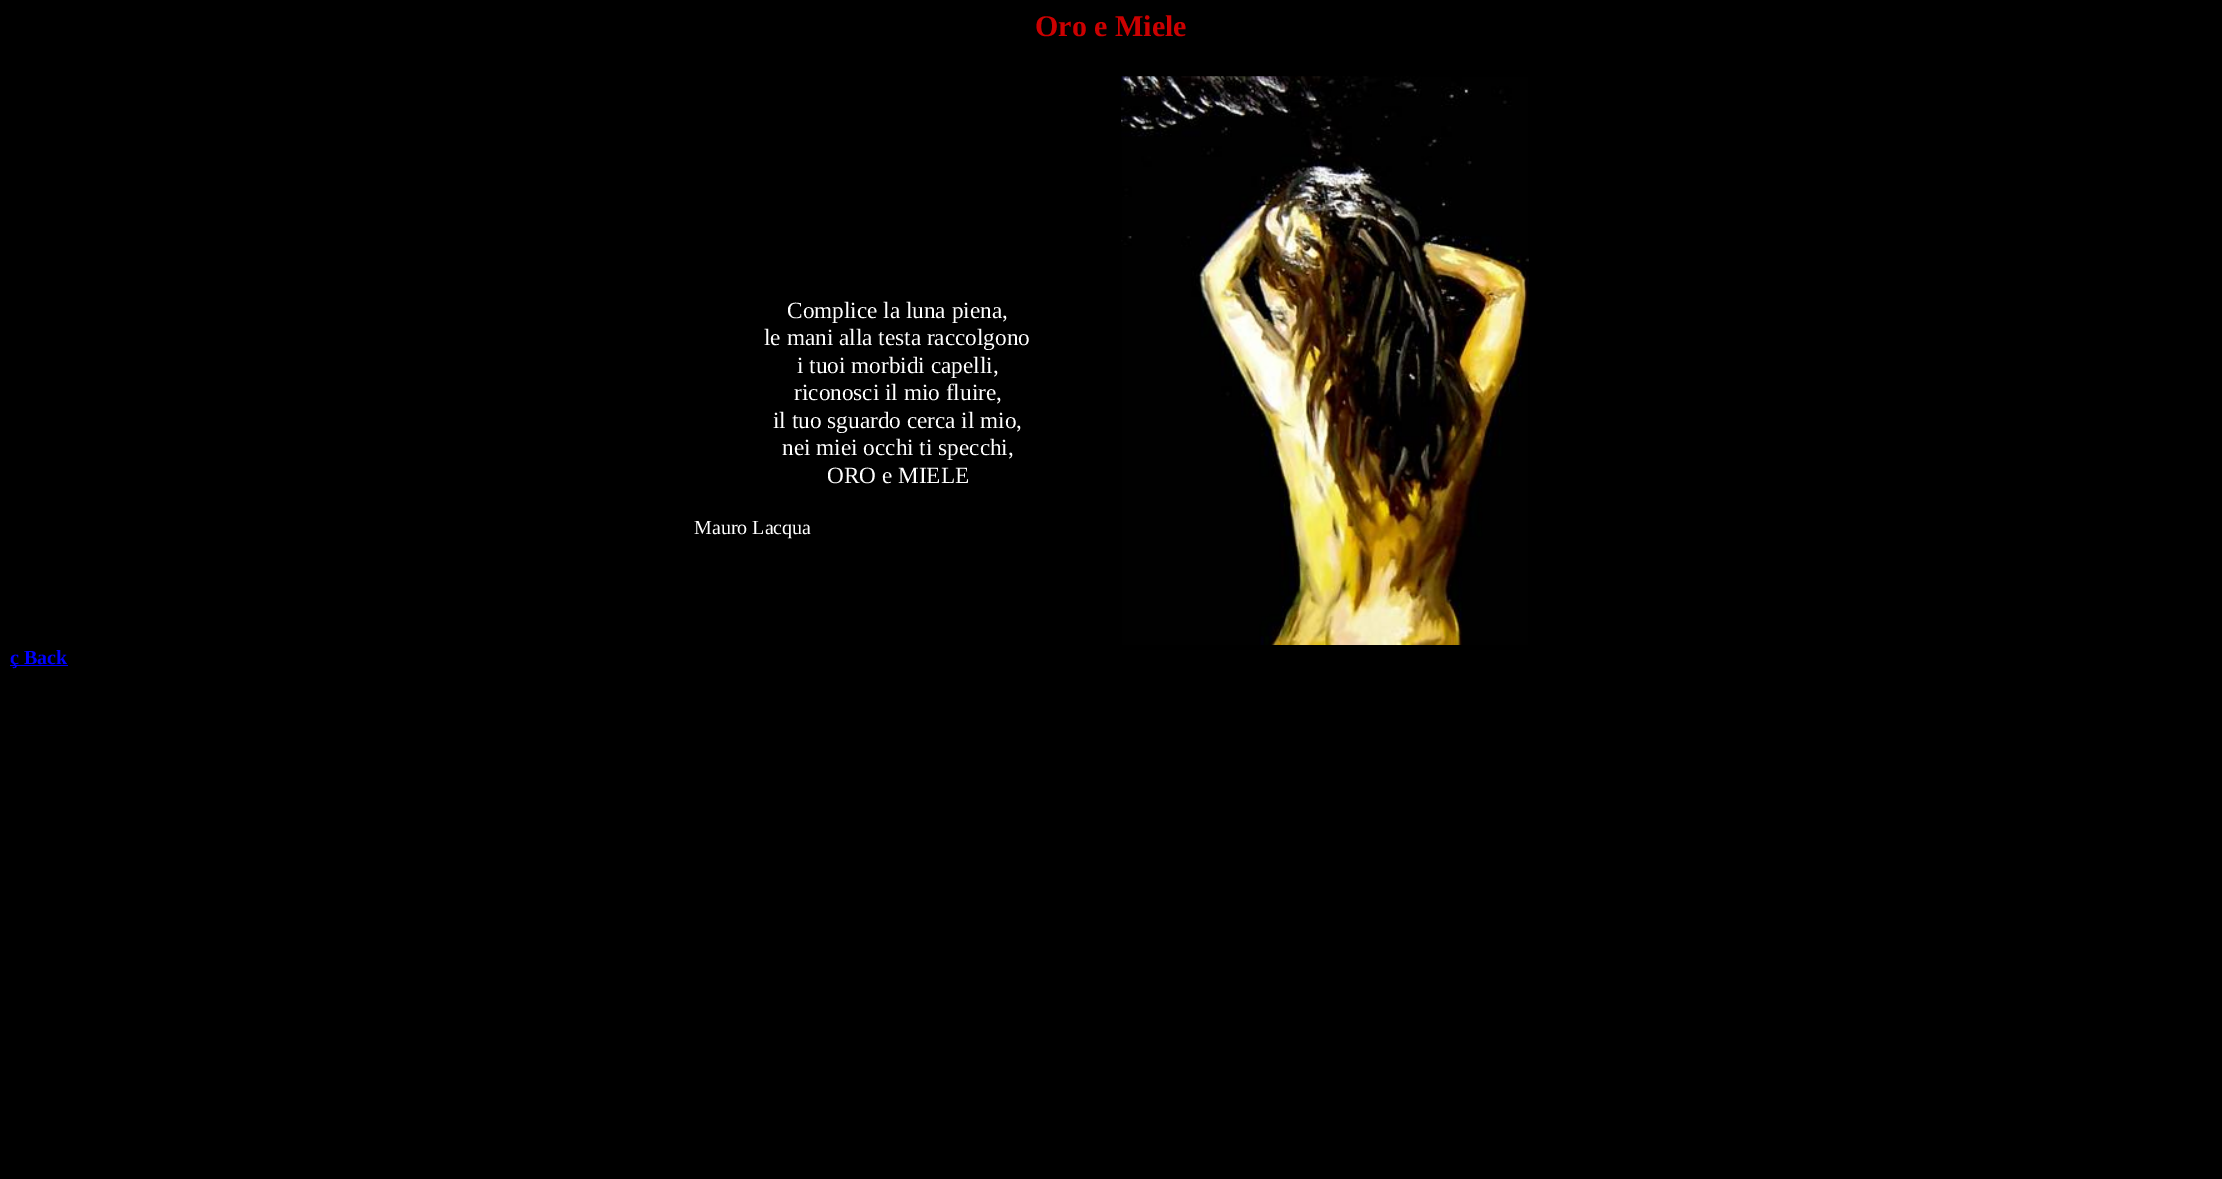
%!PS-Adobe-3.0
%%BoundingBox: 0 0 2222 1179
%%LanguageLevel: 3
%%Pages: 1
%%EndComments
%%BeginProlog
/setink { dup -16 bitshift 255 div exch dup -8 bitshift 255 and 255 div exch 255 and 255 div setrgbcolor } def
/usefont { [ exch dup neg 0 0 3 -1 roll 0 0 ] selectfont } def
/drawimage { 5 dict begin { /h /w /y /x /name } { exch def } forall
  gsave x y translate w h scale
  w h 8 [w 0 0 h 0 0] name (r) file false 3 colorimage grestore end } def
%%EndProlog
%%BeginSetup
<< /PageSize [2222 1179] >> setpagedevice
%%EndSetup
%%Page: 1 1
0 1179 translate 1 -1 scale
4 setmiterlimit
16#000000 setink
0 0 2222 1179 rectfill
/LiberationSerif-Bold 30 usefont
16#CC0000 setink
1035 36 moveto (Oro e Miele) show
/LiberationSerif-Regular 23.25 usefont
16#FFFFFF setink
[
    [(Complice la luna piena,) 787 318]
    [(le mani alla testa raccolgono) 764 345]
    [(i tuoi morbidi capelli,) 797 373]
    [(riconosci il mio fluire,) 794 400]
    [(il tuo sguardo cerca il mio,) 773 428]
    [(nei miei occhi ti specchi,) 782 455]
    [(ORO e MIELE) 827 483]
] { aload pop moveto show } forall
/LiberationSerif-Regular 20 usefont
694 534 moveto (Mauro Lacqua) show
(img1.raw) 1121 76 408 569 drawimage
16#0000FF setink
10 665 58 1 rectfill
/LiberationSerif-Bold 20 usefont
10 664 moveto (ç Back) show
showpage
%%EOF
